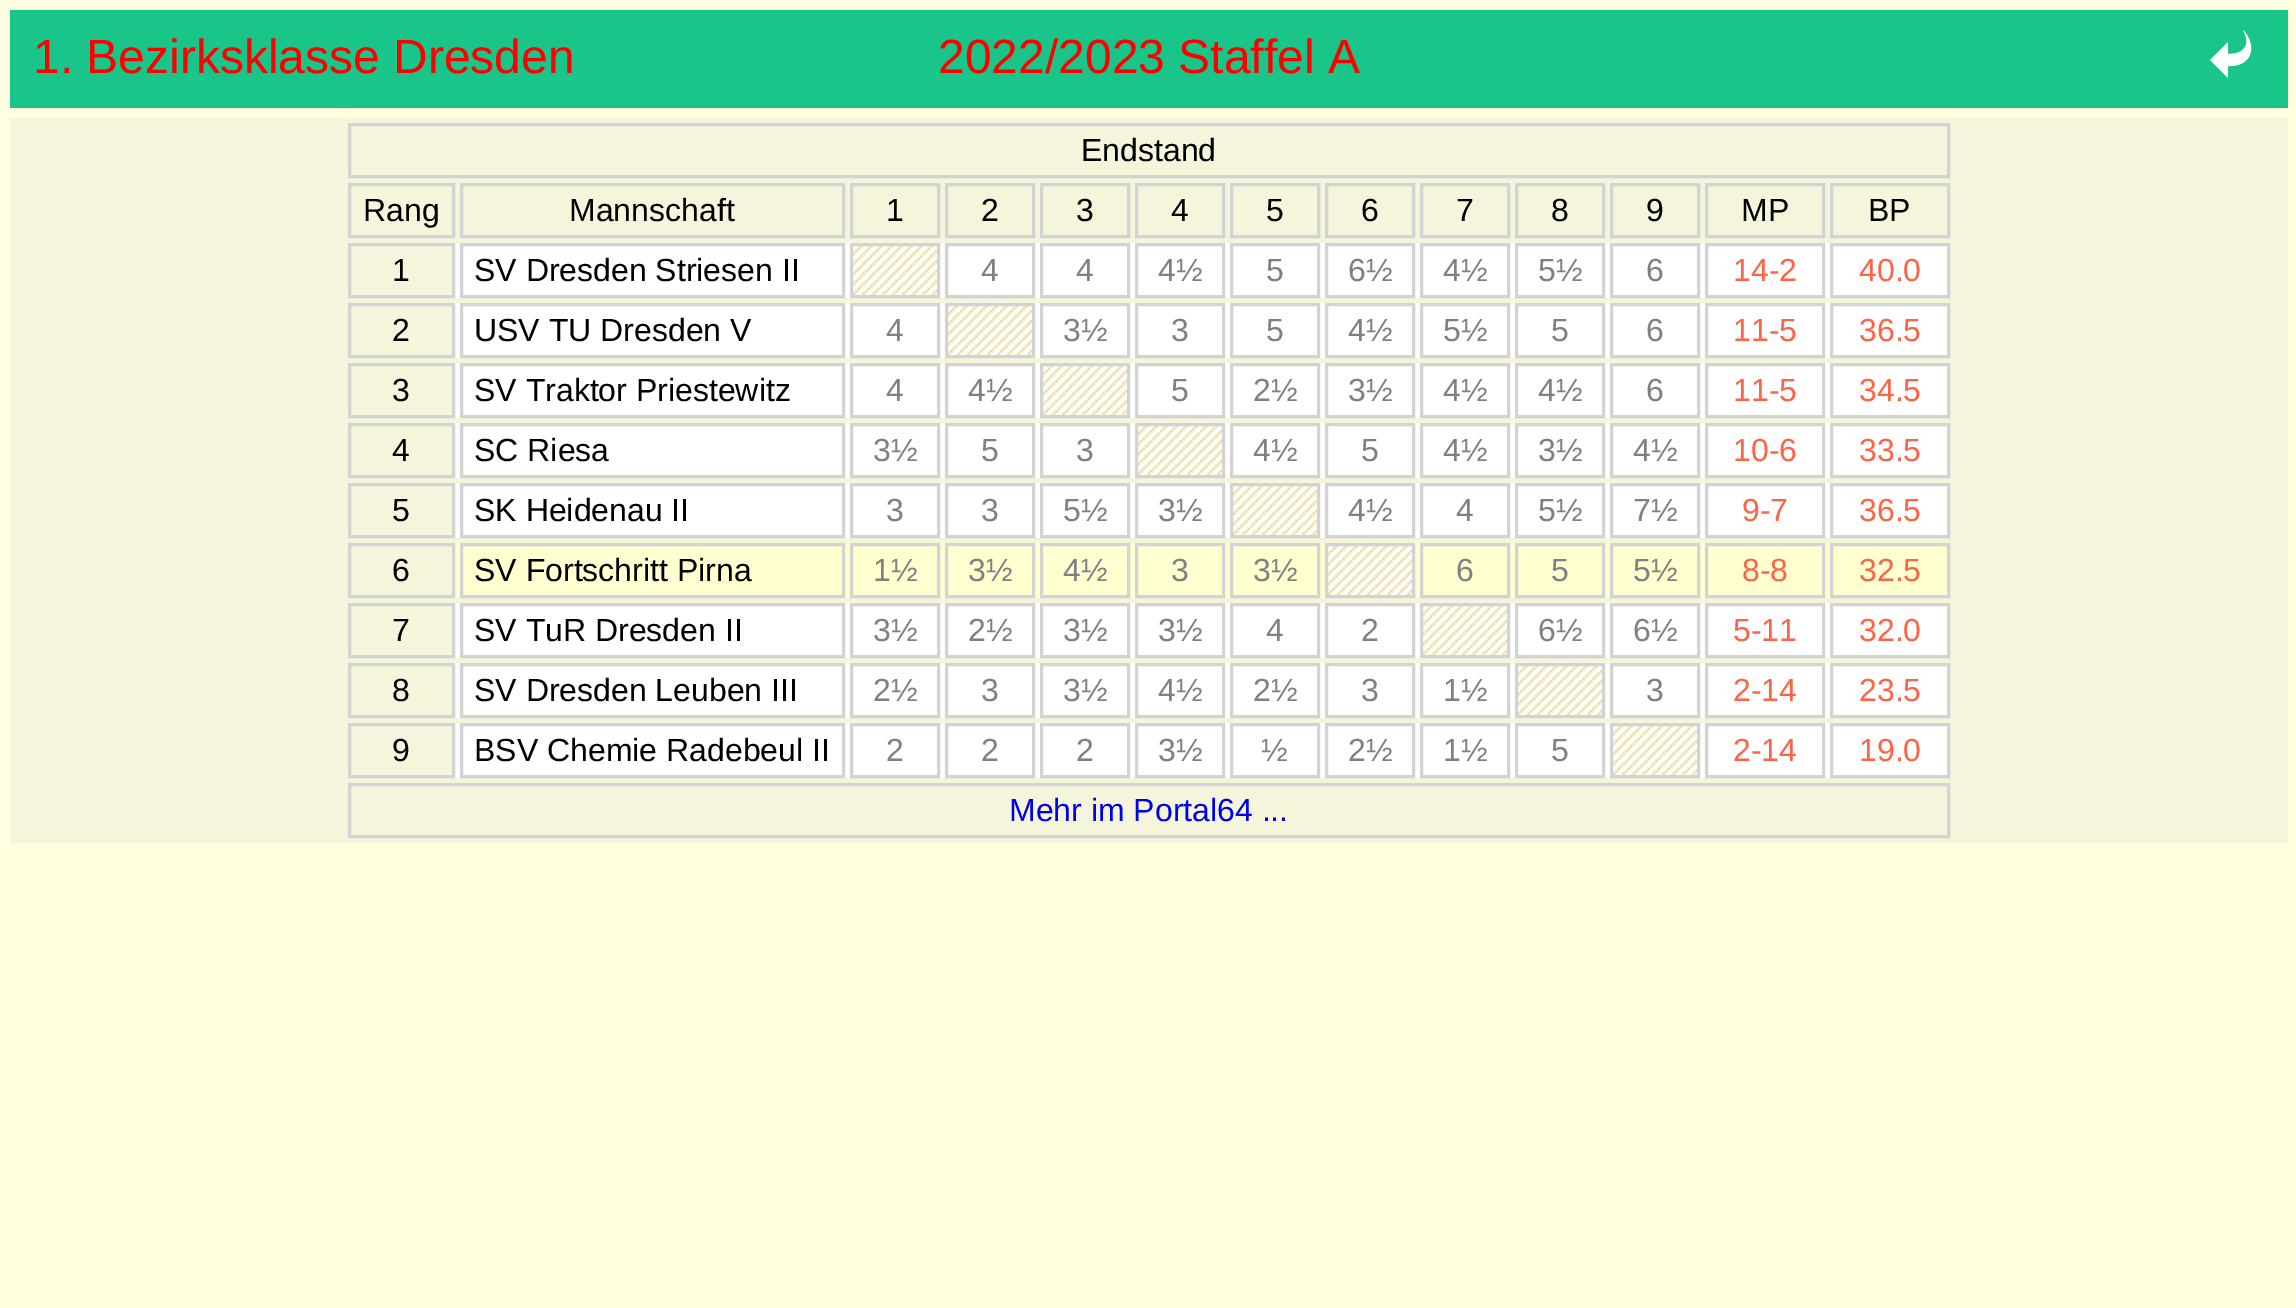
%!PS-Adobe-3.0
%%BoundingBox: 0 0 2296 1308
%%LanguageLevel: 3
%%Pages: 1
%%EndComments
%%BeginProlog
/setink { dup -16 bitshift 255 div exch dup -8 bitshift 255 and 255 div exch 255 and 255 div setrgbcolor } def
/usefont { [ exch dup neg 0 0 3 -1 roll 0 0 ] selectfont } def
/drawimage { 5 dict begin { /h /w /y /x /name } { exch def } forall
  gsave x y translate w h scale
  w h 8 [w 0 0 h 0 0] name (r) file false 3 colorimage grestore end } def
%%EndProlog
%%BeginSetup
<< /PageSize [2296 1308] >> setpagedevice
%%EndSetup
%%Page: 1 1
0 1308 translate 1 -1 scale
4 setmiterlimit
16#FFFFE0 setink
0 0 2296 1308 rectfill
16#19C589 setink
10 10 2278 98 rectfill
/LiberationSans-Regular 48 usefont
16#FF0000 setink
33 73 moveto (1. Bezirksklasse Dresden) show
938 73 moveto (2022/2023 Staffel A) show
16#FFFFFF setink
2228 66 moveto 2228 78 lineto 2210 60 lineto 2228 42 lineto 2228 54 lineto 2245 54 2251 44 2243 30 curveto 2258 46 2252 67 2228 66 curveto closepath fill
16#F5F5DC setink
10 118 2278 725 rectfill
16#D3D3D3 setink
3 setlinewidth
349.5 124.5 1599 52 rectstroke
/LiberationSans-Regular 32 usefont
16#000000 setink
1081 161 moveto (Endstand) show
16#D3D3D3 setink
349.5 184.5 104 52 rectstroke
16#000000 setink
363 221 moveto (Rang) show
16#D3D3D3 setink
461.5 184.5 382 52 rectstroke
16#000000 setink
569 221 moveto (Mannschaft) show
16#D3D3D3 setink
851.5 184.5 87 52 rectstroke
16#000000 setink
886 221 moveto (1) show
16#D3D3D3 setink
946.5 184.5 87 52 rectstroke
16#000000 setink
981 221 moveto (2) show
16#D3D3D3 setink
1041.5 184.5 87 52 rectstroke
16#000000 setink
1076 221 moveto (3) show
16#D3D3D3 setink
1136.5 184.5 87 52 rectstroke
16#000000 setink
1171 221 moveto (4) show
16#D3D3D3 setink
1231.5 184.5 87 52 rectstroke
16#000000 setink
1266 221 moveto (5) show
16#D3D3D3 setink
1326.5 184.5 87 52 rectstroke
16#000000 setink
1361 221 moveto (6) show
16#D3D3D3 setink
1421.5 184.5 87 52 rectstroke
16#000000 setink
1456 221 moveto (7) show
16#D3D3D3 setink
1516.5 184.5 87 52 rectstroke
16#000000 setink
1551 221 moveto (8) show
16#D3D3D3 setink
1611.5 184.5 87 52 rectstroke
16#000000 setink
1646 221 moveto (9) show
16#D3D3D3 setink
1706.5 184.5 117 52 rectstroke
16#000000 setink
1741 221 moveto (MP) show
16#D3D3D3 setink
1831.5 184.5 117 52 rectstroke
16#000000 setink
1868 221 moveto (BP) show
16#FFFFFF setink
455 243 1492 55 rectfill
16#D3D3D3 setink
349.5 244.5 104 52 rectstroke
16#000000 setink
392 281 moveto (1) show
16#D3D3D3 setink
461.5 244.5 382 52 rectstroke
16#000000 setink
474 281 moveto (SV Dresden Striesen II) show
(img1.raw) 850 242 90 53 drawimage
16#D3D3D3 setink
851.5 244.5 87 52 rectstroke
946.5 244.5 87 52 rectstroke
16#808080 setink
981 281 moveto (4) show
16#D3D3D3 setink
1041.5 244.5 87 52 rectstroke
16#808080 setink
1076 281 moveto (4) show
16#D3D3D3 setink
1136.5 244.5 87 52 rectstroke
16#808080 setink
1158 281 moveto (4½) show
16#D3D3D3 setink
1231.5 244.5 87 52 rectstroke
16#808080 setink
1266 281 moveto (5) show
16#D3D3D3 setink
1326.5 244.5 87 52 rectstroke
16#808080 setink
1348 281 moveto (6½) show
16#D3D3D3 setink
1421.5 244.5 87 52 rectstroke
16#808080 setink
1443 281 moveto (4½) show
16#D3D3D3 setink
1516.5 244.5 87 52 rectstroke
16#808080 setink
1538 281 moveto (5½) show
16#D3D3D3 setink
1611.5 244.5 87 52 rectstroke
16#808080 setink
1646 281 moveto (6) show
16#D3D3D3 setink
1706.5 244.5 117 52 rectstroke
16#FF6347 setink
1733 281 moveto (14-2) show
16#D3D3D3 setink
1831.5 244.5 117 52 rectstroke
16#FF6347 setink
1859 281 moveto (40.0) show
16#FFFFFF setink
455 303 1492 55 rectfill
16#D3D3D3 setink
349.5 304.5 104 52 rectstroke
16#000000 setink
392 341 moveto (2) show
16#D3D3D3 setink
461.5 304.5 382 52 rectstroke
16#000000 setink
474 341 moveto (USV TU Dresden V) show
16#D3D3D3 setink
851.5 304.5 87 52 rectstroke
16#808080 setink
886 341 moveto (4) show
(img2.raw) 945 302 90 53 drawimage
16#D3D3D3 setink
946.5 304.5 87 52 rectstroke
1041.5 304.5 87 52 rectstroke
16#808080 setink
1063 341 moveto (3½) show
16#D3D3D3 setink
1136.5 304.5 87 52 rectstroke
16#808080 setink
1171 341 moveto (3) show
16#D3D3D3 setink
1231.5 304.5 87 52 rectstroke
16#808080 setink
1266 341 moveto (5) show
16#D3D3D3 setink
1326.5 304.5 87 52 rectstroke
16#808080 setink
1348 341 moveto (4½) show
16#D3D3D3 setink
1421.5 304.5 87 52 rectstroke
16#808080 setink
1443 341 moveto (5½) show
16#D3D3D3 setink
1516.5 304.5 87 52 rectstroke
16#808080 setink
1551 341 moveto (5) show
16#D3D3D3 setink
1611.5 304.5 87 52 rectstroke
16#808080 setink
1646 341 moveto (6) show
16#D3D3D3 setink
1706.5 304.5 117 52 rectstroke
16#FF6347 setink
1733 341 moveto (11-5) show
16#D3D3D3 setink
1831.5 304.5 117 52 rectstroke
16#FF6347 setink
1859 341 moveto (36.5) show
16#FFFFFF setink
455 363 1492 55 rectfill
16#D3D3D3 setink
349.5 364.5 104 52 rectstroke
16#000000 setink
392 401 moveto (3) show
16#D3D3D3 setink
461.5 364.5 382 52 rectstroke
16#000000 setink
474 401 moveto (SV Traktor Priestewitz) show
16#D3D3D3 setink
851.5 364.5 87 52 rectstroke
16#808080 setink
886 401 moveto (4) show
16#D3D3D3 setink
946.5 364.5 87 52 rectstroke
16#808080 setink
968 401 moveto (4½) show
(img3.raw) 1040 362 90 53 drawimage
16#D3D3D3 setink
1041.5 364.5 87 52 rectstroke
1136.5 364.5 87 52 rectstroke
16#808080 setink
1171 401 moveto (5) show
16#D3D3D3 setink
1231.5 364.5 87 52 rectstroke
16#808080 setink
1253 401 moveto (2½) show
16#D3D3D3 setink
1326.5 364.5 87 52 rectstroke
16#808080 setink
1348 401 moveto (3½) show
16#D3D3D3 setink
1421.5 364.5 87 52 rectstroke
16#808080 setink
1443 401 moveto (4½) show
16#D3D3D3 setink
1516.5 364.5 87 52 rectstroke
16#808080 setink
1538 401 moveto (4½) show
16#D3D3D3 setink
1611.5 364.5 87 52 rectstroke
16#808080 setink
1646 401 moveto (6) show
16#D3D3D3 setink
1706.5 364.5 117 52 rectstroke
16#FF6347 setink
1733 401 moveto (11-5) show
16#D3D3D3 setink
1831.5 364.5 117 52 rectstroke
16#FF6347 setink
1859 401 moveto (34.5) show
16#FFFFFF setink
455 423 1492 55 rectfill
16#D3D3D3 setink
349.5 424.5 104 52 rectstroke
16#000000 setink
392 461 moveto (4) show
16#D3D3D3 setink
461.5 424.5 382 52 rectstroke
16#000000 setink
474 461 moveto (SC Riesa) show
16#D3D3D3 setink
851.5 424.5 87 52 rectstroke
16#808080 setink
873 461 moveto (3½) show
16#D3D3D3 setink
946.5 424.5 87 52 rectstroke
16#808080 setink
981 461 moveto (5) show
16#D3D3D3 setink
1041.5 424.5 87 52 rectstroke
16#808080 setink
1076 461 moveto (3) show
(img4.raw) 1135 422 90 53 drawimage
16#D3D3D3 setink
1136.5 424.5 87 52 rectstroke
1231.5 424.5 87 52 rectstroke
16#808080 setink
1253 461 moveto (4½) show
16#D3D3D3 setink
1326.5 424.5 87 52 rectstroke
16#808080 setink
1361 461 moveto (5) show
16#D3D3D3 setink
1421.5 424.5 87 52 rectstroke
16#808080 setink
1443 461 moveto (4½) show
16#D3D3D3 setink
1516.5 424.5 87 52 rectstroke
16#808080 setink
1538 461 moveto (3½) show
16#D3D3D3 setink
1611.5 424.5 87 52 rectstroke
16#808080 setink
1633 461 moveto (4½) show
16#D3D3D3 setink
1706.5 424.5 117 52 rectstroke
16#FF6347 setink
1733 461 moveto (10-6) show
16#D3D3D3 setink
1831.5 424.5 117 52 rectstroke
16#FF6347 setink
1859 461 moveto (33.5) show
16#FFFFFF setink
455 483 1492 55 rectfill
16#D3D3D3 setink
349.5 484.5 104 52 rectstroke
16#000000 setink
392 521 moveto (5) show
16#D3D3D3 setink
461.5 484.5 382 52 rectstroke
16#000000 setink
474 521 moveto (SK Heidenau II) show
16#D3D3D3 setink
851.5 484.5 87 52 rectstroke
16#808080 setink
886 521 moveto (3) show
16#D3D3D3 setink
946.5 484.5 87 52 rectstroke
16#808080 setink
981 521 moveto (3) show
16#D3D3D3 setink
1041.5 484.5 87 52 rectstroke
16#808080 setink
1063 521 moveto (5½) show
16#D3D3D3 setink
1136.5 484.5 87 52 rectstroke
16#808080 setink
1158 521 moveto (3½) show
(img1.raw) 1230 482 90 53 drawimage
16#D3D3D3 setink
1231.5 484.5 87 52 rectstroke
1326.5 484.5 87 52 rectstroke
16#808080 setink
1348 521 moveto (4½) show
16#D3D3D3 setink
1421.5 484.5 87 52 rectstroke
16#808080 setink
1456 521 moveto (4) show
16#D3D3D3 setink
1516.5 484.5 87 52 rectstroke
16#808080 setink
1538 521 moveto (5½) show
16#D3D3D3 setink
1611.5 484.5 87 52 rectstroke
16#808080 setink
1633 521 moveto (7½) show
16#D3D3D3 setink
1706.5 484.5 117 52 rectstroke
16#FF6347 setink
1742 521 moveto (9-7) show
16#D3D3D3 setink
1831.5 484.5 117 52 rectstroke
16#FF6347 setink
1859 521 moveto (36.5) show
16#FFFFD0 setink
455 543 1492 55 rectfill
16#D3D3D3 setink
349.5 544.5 104 52 rectstroke
16#000000 setink
392 581 moveto (6) show
16#D3D3D3 setink
461.5 544.5 382 52 rectstroke
16#000000 setink
474 581 moveto (SV Fortschritt Pirna) show
16#D3D3D3 setink
851.5 544.5 87 52 rectstroke
16#808080 setink
873 581 moveto (1½) show
16#D3D3D3 setink
946.5 544.5 87 52 rectstroke
16#808080 setink
968 581 moveto (3½) show
16#D3D3D3 setink
1041.5 544.5 87 52 rectstroke
16#808080 setink
1063 581 moveto (4½) show
16#D3D3D3 setink
1136.5 544.5 87 52 rectstroke
16#808080 setink
1171 581 moveto (3) show
16#D3D3D3 setink
1231.5 544.5 87 52 rectstroke
16#808080 setink
1253 581 moveto (3½) show
(img5.raw) 1325 542 90 53 drawimage
16#D3D3D3 setink
1326.5 544.5 87 52 rectstroke
1421.5 544.5 87 52 rectstroke
16#808080 setink
1456 581 moveto (6) show
16#D3D3D3 setink
1516.5 544.5 87 52 rectstroke
16#808080 setink
1551 581 moveto (5) show
16#D3D3D3 setink
1611.5 544.5 87 52 rectstroke
16#808080 setink
1633 581 moveto (5½) show
16#D3D3D3 setink
1706.5 544.5 117 52 rectstroke
16#FF6347 setink
1742 581 moveto (8-8) show
16#D3D3D3 setink
1831.5 544.5 117 52 rectstroke
16#FF6347 setink
1859 581 moveto (32.5) show
16#FFFFFF setink
455 603 1492 55 rectfill
16#D3D3D3 setink
349.5 604.5 104 52 rectstroke
16#000000 setink
392 641 moveto (7) show
16#D3D3D3 setink
461.5 604.5 382 52 rectstroke
16#000000 setink
474 641 moveto (SV TuR Dresden II) show
16#D3D3D3 setink
851.5 604.5 87 52 rectstroke
16#808080 setink
873 641 moveto (3½) show
16#D3D3D3 setink
946.5 604.5 87 52 rectstroke
16#808080 setink
968 641 moveto (2½) show
16#D3D3D3 setink
1041.5 604.5 87 52 rectstroke
16#808080 setink
1063 641 moveto (3½) show
16#D3D3D3 setink
1136.5 604.5 87 52 rectstroke
16#808080 setink
1158 641 moveto (3½) show
16#D3D3D3 setink
1231.5 604.5 87 52 rectstroke
16#808080 setink
1266 641 moveto (4) show
16#D3D3D3 setink
1326.5 604.5 87 52 rectstroke
16#808080 setink
1361 641 moveto (2) show
(img6.raw) 1420 602 90 53 drawimage
16#D3D3D3 setink
1421.5 604.5 87 52 rectstroke
1516.5 604.5 87 52 rectstroke
16#808080 setink
1538 641 moveto (6½) show
16#D3D3D3 setink
1611.5 604.5 87 52 rectstroke
16#808080 setink
1633 641 moveto (6½) show
16#D3D3D3 setink
1706.5 604.5 117 52 rectstroke
16#FF6347 setink
1733 641 moveto (5-11) show
16#D3D3D3 setink
1831.5 604.5 117 52 rectstroke
16#FF6347 setink
1859 641 moveto (32.0) show
16#FFFFFF setink
455 663 1492 55 rectfill
16#D3D3D3 setink
349.5 664.5 104 52 rectstroke
16#000000 setink
392 701 moveto (8) show
16#D3D3D3 setink
461.5 664.5 382 52 rectstroke
16#000000 setink
474 701 moveto (SV Dresden Leuben III) show
16#D3D3D3 setink
851.5 664.5 87 52 rectstroke
16#808080 setink
873 701 moveto (2½) show
16#D3D3D3 setink
946.5 664.5 87 52 rectstroke
16#808080 setink
981 701 moveto (3) show
16#D3D3D3 setink
1041.5 664.5 87 52 rectstroke
16#808080 setink
1063 701 moveto (3½) show
16#D3D3D3 setink
1136.5 664.5 87 52 rectstroke
16#808080 setink
1158 701 moveto (4½) show
16#D3D3D3 setink
1231.5 664.5 87 52 rectstroke
16#808080 setink
1253 701 moveto (2½) show
16#D3D3D3 setink
1326.5 664.5 87 52 rectstroke
16#808080 setink
1361 701 moveto (3) show
16#D3D3D3 setink
1421.5 664.5 87 52 rectstroke
16#808080 setink
1443 701 moveto (1½) show
(img1.raw) 1515 662 90 53 drawimage
16#D3D3D3 setink
1516.5 664.5 87 52 rectstroke
1611.5 664.5 87 52 rectstroke
16#808080 setink
1646 701 moveto (3) show
16#D3D3D3 setink
1706.5 664.5 117 52 rectstroke
16#FF6347 setink
1733 701 moveto (2-14) show
16#D3D3D3 setink
1831.5 664.5 117 52 rectstroke
16#FF6347 setink
1859 701 moveto (23.5) show
16#FFFFFF setink
455 723 1492 55 rectfill
16#D3D3D3 setink
349.5 724.5 104 52 rectstroke
16#000000 setink
392 761 moveto (9) show
16#D3D3D3 setink
461.5 724.5 382 52 rectstroke
16#000000 setink
474 761 moveto (BSV Chemie Radebeul II) show
16#D3D3D3 setink
851.5 724.5 87 52 rectstroke
16#808080 setink
886 761 moveto (2) show
16#D3D3D3 setink
946.5 724.5 87 52 rectstroke
16#808080 setink
981 761 moveto (2) show
16#D3D3D3 setink
1041.5 724.5 87 52 rectstroke
16#808080 setink
1076 761 moveto (2) show
16#D3D3D3 setink
1136.5 724.5 87 52 rectstroke
16#808080 setink
1158 761 moveto (3½) show
16#D3D3D3 setink
1231.5 724.5 87 52 rectstroke
16#808080 setink
1261 761 moveto (½) show
16#D3D3D3 setink
1326.5 724.5 87 52 rectstroke
16#808080 setink
1348 761 moveto (2½) show
16#D3D3D3 setink
1421.5 724.5 87 52 rectstroke
16#808080 setink
1443 761 moveto (1½) show
16#D3D3D3 setink
1516.5 724.5 87 52 rectstroke
16#808080 setink
1551 761 moveto (5) show
(img1.raw) 1610 722 90 53 drawimage
16#D3D3D3 setink
1611.5 724.5 87 52 rectstroke
1706.5 724.5 117 52 rectstroke
16#FF6347 setink
1733 761 moveto (2-14) show
16#D3D3D3 setink
1831.5 724.5 117 52 rectstroke
16#FF6347 setink
1859 761 moveto (19.0) show
16#D3D3D3 setink
349.5 784.5 1599 52 rectstroke
16#0000EE setink
1009 821 moveto (Mehr im Portal64 ...) show
showpage
%%EOF
